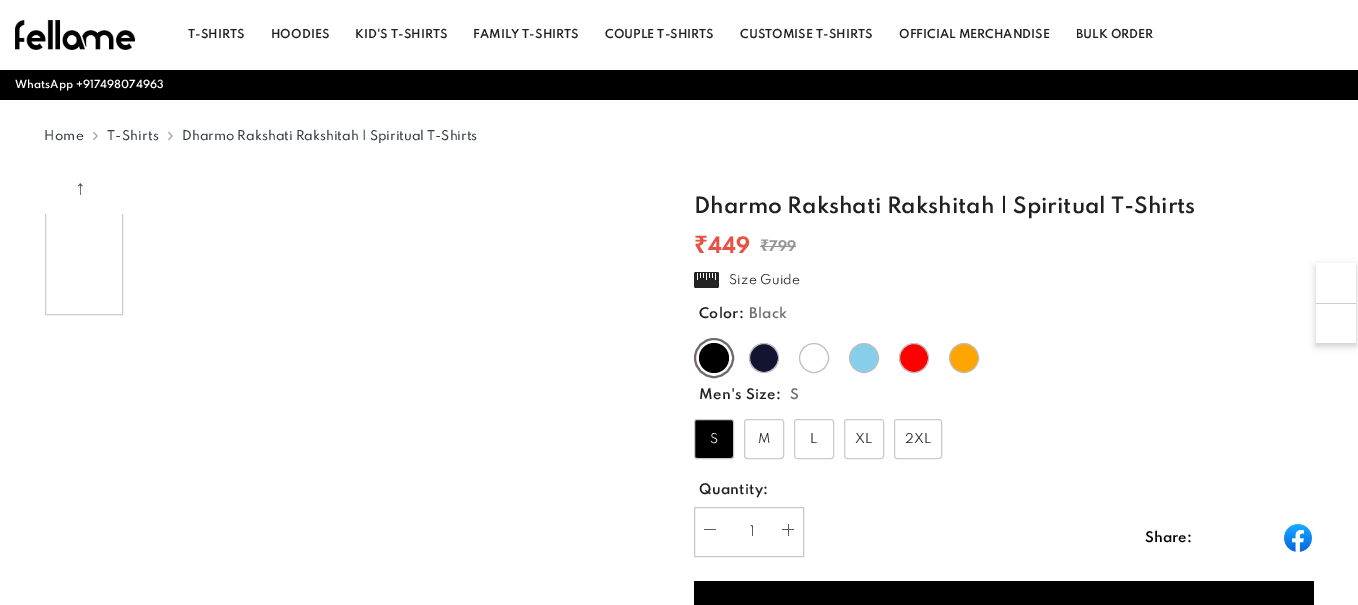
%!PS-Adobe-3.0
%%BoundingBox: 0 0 1358 605
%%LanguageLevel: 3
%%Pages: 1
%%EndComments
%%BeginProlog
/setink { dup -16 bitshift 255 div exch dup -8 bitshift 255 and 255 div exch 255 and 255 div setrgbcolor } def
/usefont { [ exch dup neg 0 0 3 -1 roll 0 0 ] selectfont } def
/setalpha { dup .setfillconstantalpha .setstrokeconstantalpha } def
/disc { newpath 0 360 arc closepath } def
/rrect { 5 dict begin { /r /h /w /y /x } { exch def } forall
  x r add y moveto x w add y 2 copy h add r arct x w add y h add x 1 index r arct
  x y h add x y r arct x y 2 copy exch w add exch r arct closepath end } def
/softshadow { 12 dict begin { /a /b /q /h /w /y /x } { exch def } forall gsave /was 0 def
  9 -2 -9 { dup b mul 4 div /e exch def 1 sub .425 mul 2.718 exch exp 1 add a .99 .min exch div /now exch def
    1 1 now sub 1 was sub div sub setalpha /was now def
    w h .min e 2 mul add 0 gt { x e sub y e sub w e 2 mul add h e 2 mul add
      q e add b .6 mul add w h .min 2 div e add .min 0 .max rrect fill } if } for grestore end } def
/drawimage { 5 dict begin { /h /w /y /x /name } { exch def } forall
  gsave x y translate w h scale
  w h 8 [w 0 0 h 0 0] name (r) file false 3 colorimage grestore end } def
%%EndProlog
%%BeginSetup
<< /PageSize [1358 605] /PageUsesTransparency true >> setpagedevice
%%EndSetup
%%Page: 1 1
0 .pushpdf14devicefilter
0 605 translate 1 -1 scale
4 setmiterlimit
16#FFFFFF setink
0 0 1358 605 rectfill
(img1.raw) 15 20 120 30 drawimage
/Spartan-SemiBold 11 usefont
16#202020 setink
[
    [(T-SHIRTS) 188 38]
    [(HOODIES) 271 38]
    [(KID'S T-SHIRTS) 355 38]
    [(FAMILY T-SHIRTS) 473 38]
    [(COUPLE T-SHIRTS) 605 38]
    [(CUSTOMISE T-SHIRTS) 740 38]
    [(OFFICIAL MERCHANDISE) 899 38]
    [(BULK ORDER) 1076 38]
] { aload pop moveto show } forall
16#000000 setink
0 70 1358 30 rectfill
/Spartan-SemiBold 10 usefont
16#FFFFFF setink
15 88 moveto (WhatsApp +917498074963) show
/Spartan-Medium 12 usefont
16#343A47 setink
44 140 moveto 0.25 0 (Home) ashow
(img2.raw) 93 131 5 10 drawimage
107 140 moveto 0.25 0 (T-Shirts) ashow
(img2.raw) 168 131 5 10 drawimage
182 140 moveto (Dharmo Rakshati Rakshitah | Spiritual T-Shirts) show
/LiberationSerif-Regular 20 usefont
16#404040 setink
gsave 77 179 translate 90 rotate 0 0 moveto (←) show grestore
gsave
44 214 80 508 rectclip
16#CCCCCC setink
45.5 207.5 77 107 rectstroke
grestore
/Spartan-SemiBold 20 usefont
16#202020 setink
694 213 moveto (Dharmo Rakshati Rakshitah | Spiritual T-Shirts) show
/NotoSans-Bold 24 usefont
16#E95144 setink
694 253 moveto (₹) show
/Spartan-Bold 20 usefont
708 253 moveto (449) show
/NotoSans-Bold 16 usefont
16#969696 setink
760 251 moveto (₹) show
760 246 9 1 rectfill
/Spartan-Bold 13 usefont
769 251 moveto (799) show
769 246 27 1 rectfill
(img3.raw) 694 272 25 16 drawimage
/Spartan-Regular 12 usefont
16#202020 setink
729 284 moveto 0.25 0 (Size Guide) ashow
/Spartan-SemiBold 13 usefont
699 318 moveto 0.25 0 (Color:) ashow
16#6E7072 setink
749 318 moveto 0.25 0 (Black) ashow
16#726969 setink
2 setlinewidth
714 358 19 disc stroke
16#000000 setink
714 358 15 disc fill
16#121430 setink
764 358 14.5 disc gsave fill grestore
16#BEBEC4 setink
1 setlinewidth
stroke
814 358 14.5 disc stroke
16#87CEEB setink
864 358 14.5 disc gsave fill grestore
16#BEBEC4 setink
stroke
16#FF0000 setink
914 358 14.5 disc gsave fill grestore
16#BEBEC4 setink
stroke
16#FFA500 setink
964 358 14.5 disc gsave fill grestore
16#BEBEC4 setink
stroke
16#202020 setink
699 399 moveto 0.25 0 (Men's Size:) ashow
16#6E7072 setink
790 399 moveto 0.25 0 (S) ashow
16#000000 setink
694.5 419.5 39 39 2.5 rrect gsave fill grestore
16#CBCBCB setink
stroke
/Spartan-Regular 12 usefont
16#FFFFFF setink
710 443 moveto (S) show
16#CBCBCB setink
744.5 419.5 39 39 2.5 rrect stroke
16#202020 setink
758 443 moveto (M) show
16#CBCBCB setink
794.5 419.5 39 39 2.5 rrect stroke
16#202020 setink
810 443 moveto (L) show
16#CBCBCB setink
844.5 419.5 39 39 2.5 rrect stroke
16#202020 setink
855 443 moveto (XL) show
16#CBCBCB setink
894.5 419.5 47 39 2.5 rrect stroke
16#202020 setink
905 443 moveto (2XL) show
/Spartan-SemiBold 13 usefont
699 494 moveto 0.25 0 (Quantity:) ashow
16#C7C7C7 setink
694.5 507.5 109 49 rectstroke
16#5A5A5A setink
704 529 12 1 rectfill
/Spartan-Regular 13 usefont
16#202020 setink
750 536 moveto 0.25 0 (1) ashow
16#5A5A5A setink
782 529 12 1 rectfill
788 524 1 12 rectfill
/Spartan-SemiBold 13 usefont
16#000000 setink
1145 542 moveto (Share:) show
(img4.raw) 1284 524 28 28 drawimage
694 581 620 24 rectfill
gsave
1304 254 moveto 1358 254 lineto 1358 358 lineto 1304 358 lineto closepath 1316 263 moveto 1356 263 lineto 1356 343 lineto 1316 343 lineto closepath eoclip newpath
1316 266 40 80 0 3.5 0.2 softshadow
grestore
16#CCCCCC setink
1316 303 40 1 rectfill
.poppdf14devicefilter showpage
%%EOF
